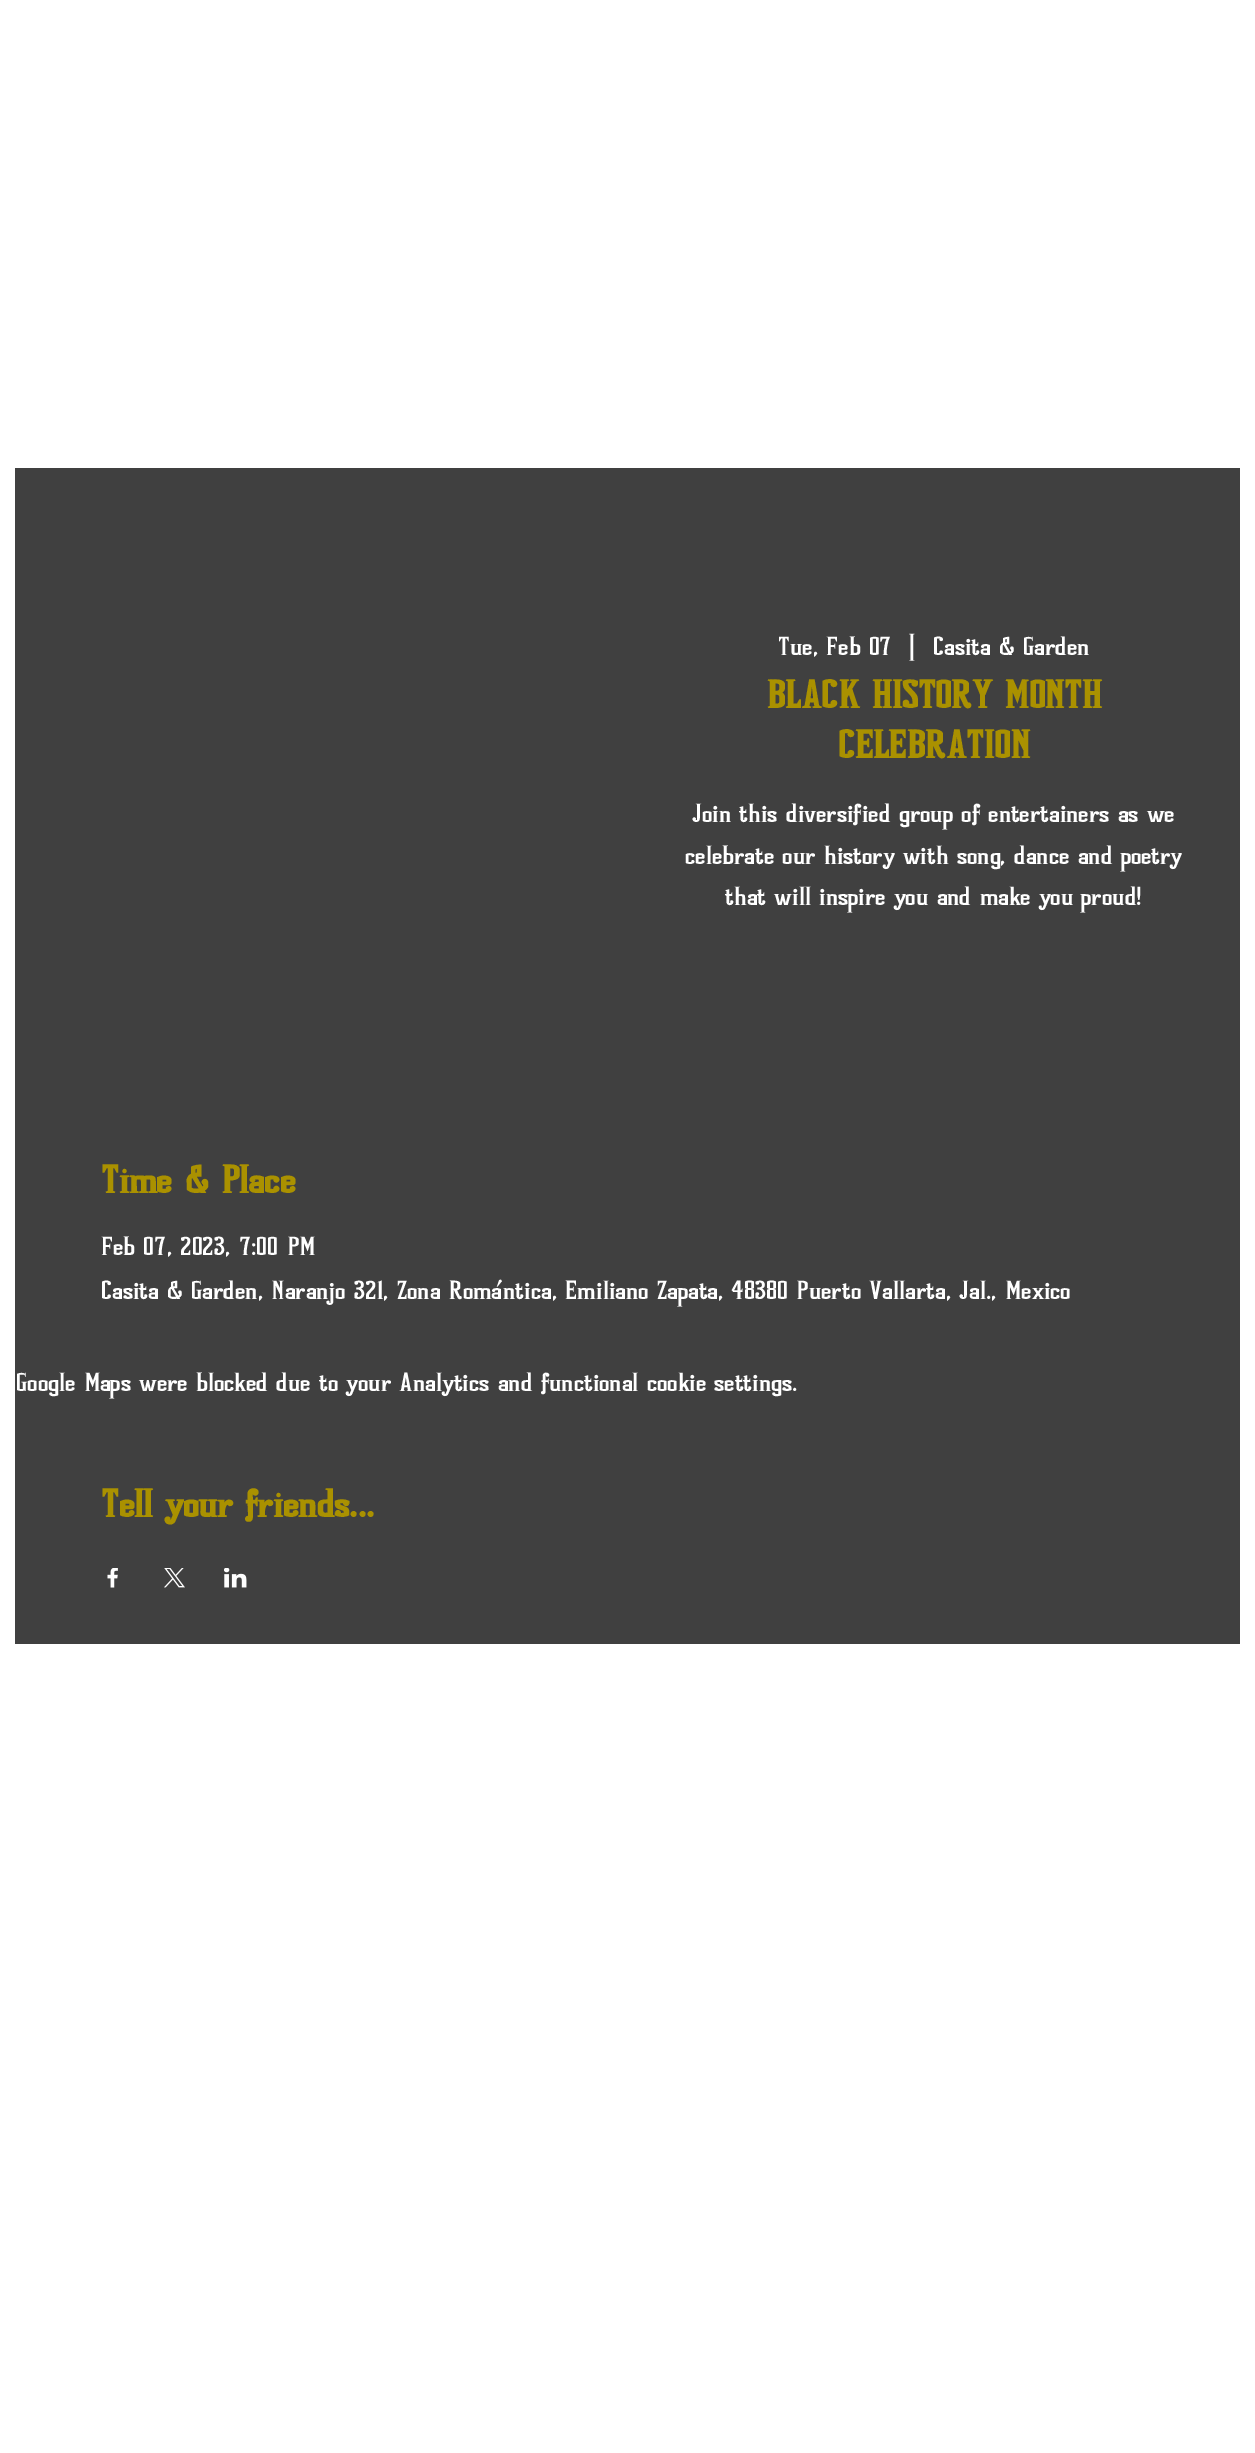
%!PS-Adobe-3.0
%%BoundingBox: 0 0 1255 2453
%%LanguageLevel: 3
%%Pages: 1
%%EndComments
%%BeginProlog
/setink { dup -16 bitshift 255 div exch dup -8 bitshift 255 and 255 div exch 255 and 255 div setrgbcolor } def
/usefont { [ exch dup neg 0 0 3 -1 roll 0 0 ] selectfont } def
/drawimage { 5 dict begin { /h /w /y /x /name } { exch def } forall
  gsave x y translate w h scale
  w h 8 [w 0 0 h 0 0] name (r) file false 3 colorimage grestore end } def
%%EndProlog
%%BeginSetup
<< /PageSize [1255 2453] >> setpagedevice
%%EndSetup
%%Page: 1 1
0 2453 translate 1 -1 scale
4 setmiterlimit
16#FFFFFF setink
0 0 1255 2453 rectfill
16#404040 setink
15 468 1225 1176 rectfill
/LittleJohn-Regular 27.5 usefont
16#FFFFFF setink
[
    [(Tue, Feb 07) 778 655]
    [(|) 908 655]
    [(Casita & Garden) 933 655]
] { aload pop moveto show } forall
/LittleJohn-Bold 41.25 usefont
16#AA9100 setink
767 708 moveto (BLACK HISTORY MONTH) show
838 758 moveto (CELEBRATION) show
/LittleJohn-Regular 27.5 usefont
16#FFFFFF setink
[
    [(Join this diversified group of entertainers as we) 692 822]
    [(celebrate our history with song, dance and poetry) 685 864]
    [(that will inspire you and make you proud!) 725 905]
] { aload pop moveto show } forall
/LittleJohn-Bold 41.25 usefont
16#AA9100 setink
101 1193 moveto (Time & Place) show
/LittleJohn-Regular 27.5 usefont
16#FFFFFF setink
[
    [(Feb 07, 2023, 7:00 PM) 101 1255]
    [(Casita & Garden, Naranjo 321, Zona Romántica, Emiliano Zapata, 48380 Puerto Vallarta, Jal., Mexico) 101 1299]
    [(Google Maps were blocked due to your Analytics and functional cookie settings.) 16 1391]
] { aload pop moveto show } forall
/LittleJohn-Bold 41.25 usefont
16#AA9100 setink
101 1517 moveto (Tell your friends...) show
(img1.raw) 107 1568 11 20 drawimage
(img2.raw) 164 1568 21 20 drawimage
(img3.raw) 224 1568 23 20 drawimage
showpage
%%EOF
